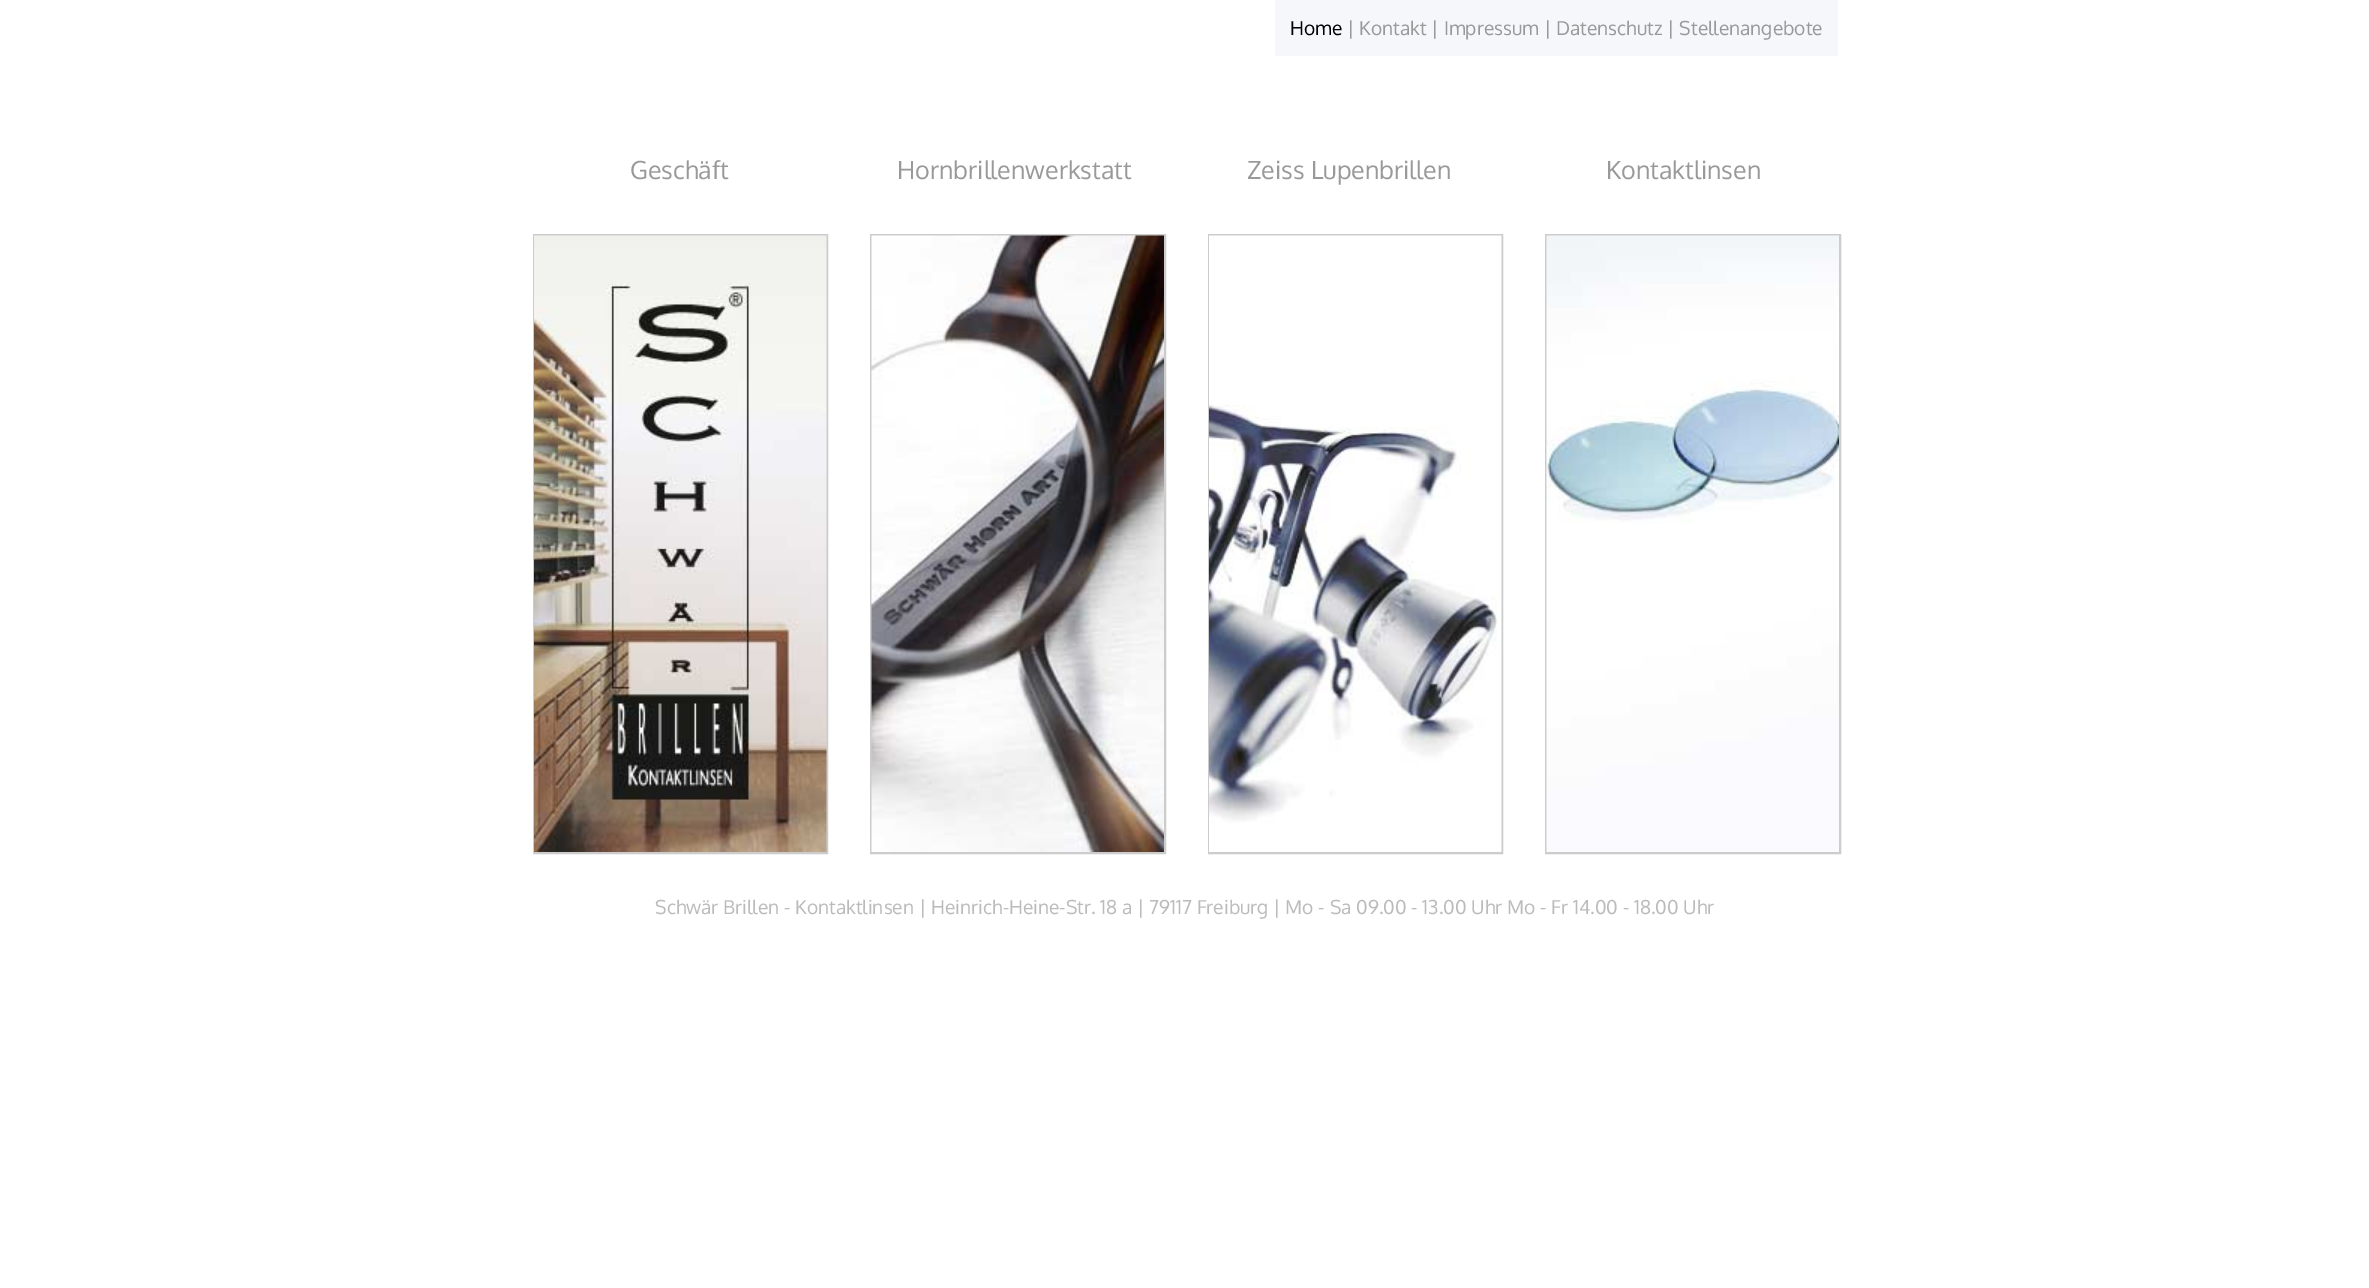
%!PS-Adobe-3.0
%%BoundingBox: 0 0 2369 1288
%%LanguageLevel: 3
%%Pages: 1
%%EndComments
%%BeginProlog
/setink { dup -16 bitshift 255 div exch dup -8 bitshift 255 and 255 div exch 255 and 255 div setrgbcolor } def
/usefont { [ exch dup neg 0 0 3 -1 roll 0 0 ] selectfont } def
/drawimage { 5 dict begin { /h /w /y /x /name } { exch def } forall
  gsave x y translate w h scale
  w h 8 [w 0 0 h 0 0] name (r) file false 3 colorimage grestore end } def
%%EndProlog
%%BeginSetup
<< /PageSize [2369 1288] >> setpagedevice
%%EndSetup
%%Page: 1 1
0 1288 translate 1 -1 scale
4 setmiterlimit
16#FFFFFF setink
0 0 2369 1288 rectfill
16#F5F7FB setink
1275 0 563 56 rectfill
/Oxygen-Regular 19.2 usefont
16#000000 setink
1290 35 moveto (Home) show
16#999999 setink
1347 35 moveto (| Kontakt | Impressum | Datenschutz | Stellenangebote) show
/Oxygen-Regular 25 usefont
[
    [(Geschäft) 630 179]
    [(Hornbrillenwerkstatt) 897 179]
    [(Zeiss Lupenbrillen) 1247 179]
    [(Kontaktlinsen) 1606 179]
] { aload pop moveto show } forall
16#CCCCCC setink
2 setlinewidth
534 235 293 618 rectstroke
(img1.raw) 534 235 293 617 drawimage
871 235 294 618 rectstroke
(img2.raw) 871 235 293 617 drawimage
1209 235 293 618 rectstroke
(img3.raw) 1209 235 293 617 drawimage
1546 235 294 618 rectstroke
(img4.raw) 1546 235 293 617 drawimage
/Oxygen-Regular 19.2 usefont
16#BBBBBB setink
655 914 moveto (Schwär Brillen - Kontaktlinsen | Heinrich-Heine-Str. 18 a | 79117 Freiburg | Mo - Sa 09.00 - 13.00 Uhr Mo - Fr 14.00 - 18.00 Uhr) show
showpage
%%EOF
